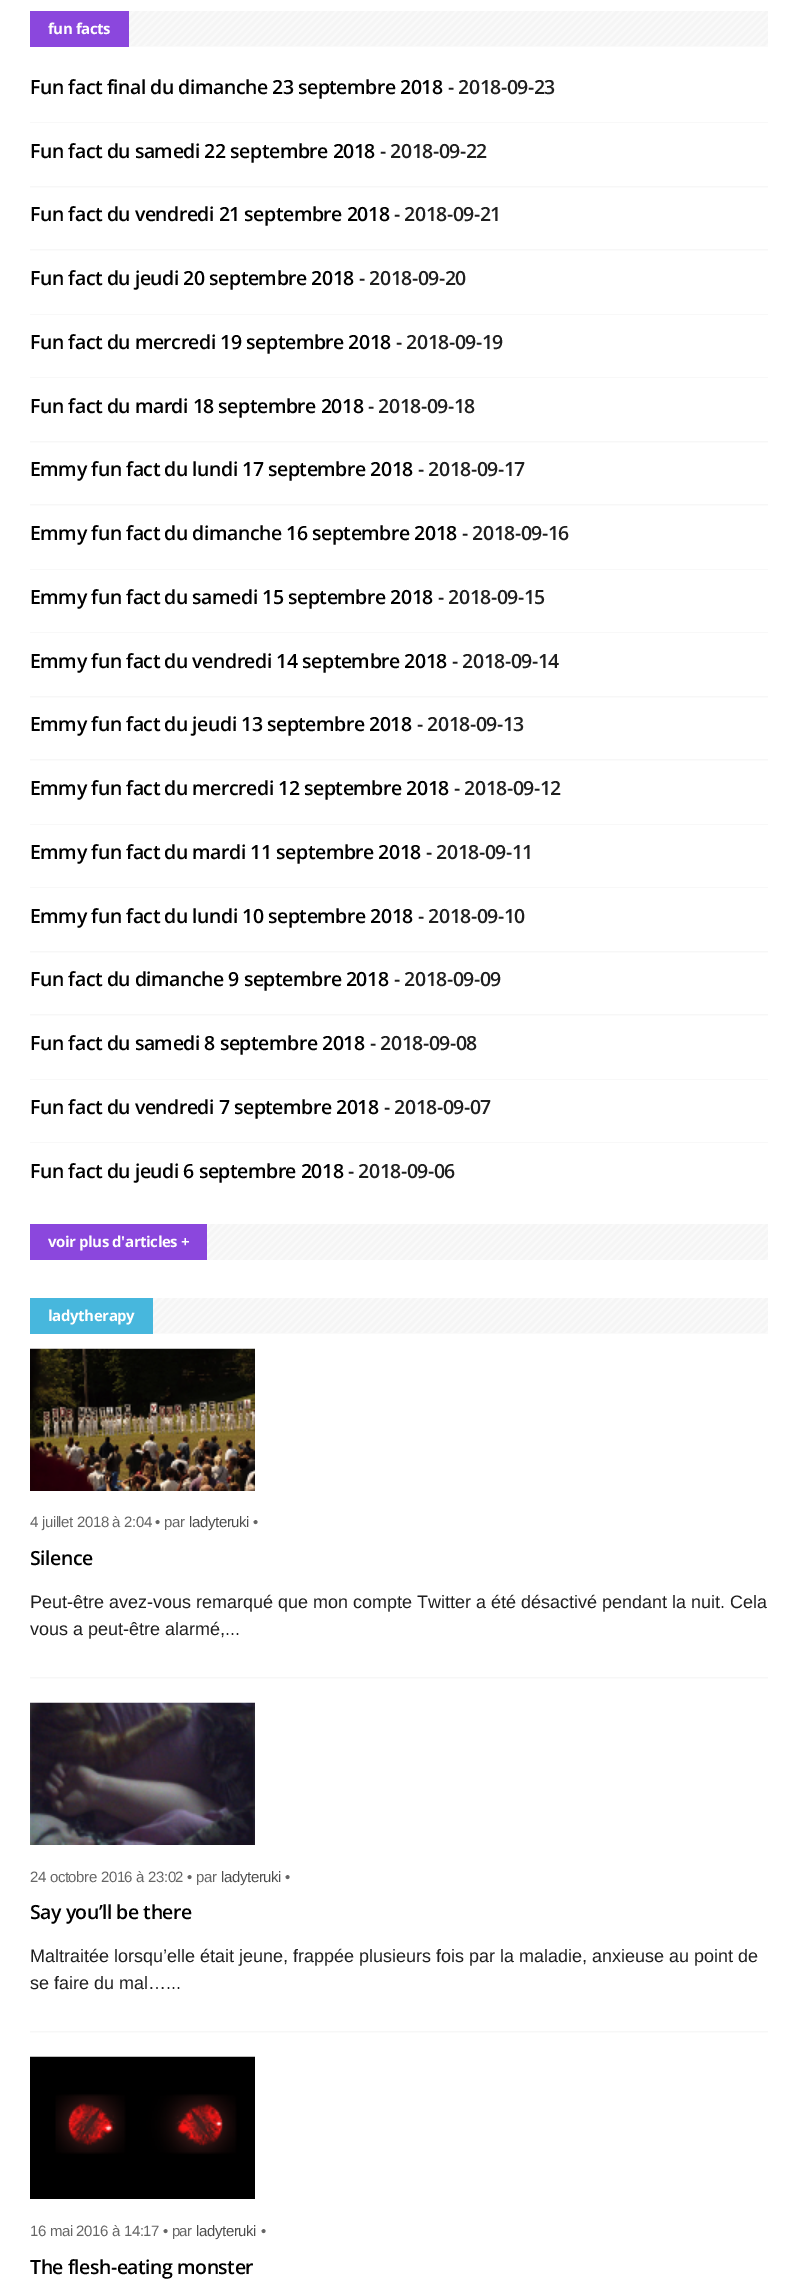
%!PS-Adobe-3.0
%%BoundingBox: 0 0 797 2291
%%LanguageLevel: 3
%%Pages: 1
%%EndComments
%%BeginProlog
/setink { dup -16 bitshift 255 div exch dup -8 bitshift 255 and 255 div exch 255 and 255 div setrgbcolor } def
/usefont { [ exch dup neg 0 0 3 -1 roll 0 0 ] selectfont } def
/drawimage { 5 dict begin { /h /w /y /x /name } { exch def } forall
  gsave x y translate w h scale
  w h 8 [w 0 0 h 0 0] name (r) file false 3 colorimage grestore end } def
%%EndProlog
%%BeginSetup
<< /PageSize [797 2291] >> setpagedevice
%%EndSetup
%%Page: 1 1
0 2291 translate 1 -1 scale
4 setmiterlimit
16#FFFFFF setink
0 0 797 2291 rectfill
16#FAFAFA setink
129 11 639 36 rectfill
(img1.raw) 129 11 639 35 drawimage
16#8B47DD setink
30 11 99 36 rectfill
/OpenSans-Bold 15 usefont
16#FFFFFF setink
48 34 moveto -0.4 0 (fun facts) ashow
16#F8F8F8 setink
30 122 738 1 rectfill
/OpenSans-SemiBold 19.5 usefont
16#000000 setink
30 94 moveto -0.5 0 (Fun fact final du dimanche 23 septembre 2018) ashow
16#1F1F1F setink
448 94 moveto -0.5 0 (- 2018-09-23) ashow
(img2.raw) 30 186 738 2 drawimage
16#000000 setink
30 158 moveto -0.5 0 (Fun fact du samedi 22 septembre 2018) ashow
16#1F1F1F setink
380 158 moveto -0.5 0 (- 2018-09-22) ashow
(img2.raw) 30 249 738 2 drawimage
16#000000 setink
30 221 moveto -0.5 0 (Fun fact du vendredi 21 septembre 2018) ashow
16#1F1F1F setink
394 221 moveto -0.5 0 (- 2018-09-21) ashow
16#F8F8F8 setink
30 314 738 1 rectfill
16#000000 setink
30 285 moveto -0.5 0 (Fun fact du jeudi 20 septembre 2018) ashow
16#1F1F1F setink
359 285 moveto -0.5 0 (- 2018-09-20) ashow
16#F8F8F8 setink
30 377 738 1 rectfill
16#000000 setink
30 349 moveto -0.5 0 (Fun fact du mercredi 19 septembre 2018) ashow
16#1F1F1F setink
396 349 moveto -0.5 0 (- 2018-09-19) ashow
(img2.raw) 30 441 738 2 drawimage
16#000000 setink
30 413 moveto -0.5 0 (Fun fact du mardi 18 septembre 2018) ashow
16#1F1F1F setink
368 413 moveto -0.5 0 (- 2018-09-18) ashow
(img2.raw) 30 504 738 2 drawimage
16#000000 setink
30 476 moveto -0.5 0 (Emmy fun fact du lundi 17 septembre 2018) ashow
16#1F1F1F setink
418 476 moveto -0.5 0 (- 2018-09-17) ashow
16#F8F8F8 setink
30 569 738 1 rectfill
16#000000 setink
30 540 moveto -0.5 0 (Emmy fun fact du dimanche 16 septembre 2018) ashow
16#1F1F1F setink
462 540 moveto -0.5 0 (- 2018-09-16) ashow
16#F8F8F8 setink
30 632 738 1 rectfill
16#000000 setink
30 604 moveto -0.5 0 (Emmy fun fact du samedi 15 septembre 2018) ashow
16#1F1F1F setink
438 604 moveto -0.5 0 (- 2018-09-15) ashow
(img2.raw) 30 696 738 2 drawimage
16#000000 setink
30 668 moveto -0.5 0 (Emmy fun fact du vendredi 14 septembre 2018) ashow
16#1F1F1F setink
452 668 moveto -0.5 0 (- 2018-09-14) ashow
(img2.raw) 30 759 738 2 drawimage
16#000000 setink
30 731 moveto -0.5 0 (Emmy fun fact du jeudi 13 septembre 2018) ashow
16#1F1F1F setink
417 731 moveto -0.5 0 (- 2018-09-13) ashow
16#F8F8F8 setink
30 824 738 1 rectfill
16#000000 setink
30 795 moveto -0.5 0 (Emmy fun fact du mercredi 12 septembre 2018) ashow
16#1F1F1F setink
454 795 moveto -0.5 0 (- 2018-09-12) ashow
16#F8F8F8 setink
30 887 738 1 rectfill
16#000000 setink
30 859 moveto -0.5 0 (Emmy fun fact du mardi 11 septembre 2018) ashow
16#1F1F1F setink
426 859 moveto -0.5 0 (- 2018-09-11) ashow
(img2.raw) 30 951 738 2 drawimage
16#000000 setink
30 923 moveto -0.5 0 (Emmy fun fact du lundi 10 septembre 2018) ashow
16#1F1F1F setink
418 923 moveto -0.5 0 (- 2018-09-10) ashow
(img2.raw) 30 1014 738 2 drawimage
16#000000 setink
30 986 moveto -0.5 0 (Fun fact du dimanche 9 septembre 2018) ashow
16#1F1F1F setink
394 986 moveto -0.5 0 (- 2018-09-09) ashow
16#F8F8F8 setink
30 1079 738 1 rectfill
16#000000 setink
30 1050 moveto -0.5 0 (Fun fact du samedi 8 septembre 2018) ashow
16#1F1F1F setink
370 1050 moveto -0.5 0 (- 2018-09-08) ashow
16#F8F8F8 setink
30 1142 738 1 rectfill
16#000000 setink
30 1114 moveto -0.5 0 (Fun fact du vendredi 7 septembre 2018) ashow
16#1F1F1F setink
384 1114 moveto -0.5 0 (- 2018-09-07) ashow
16#000000 setink
30 1178 moveto -0.5 0 (Fun fact du jeudi 6 septembre 2018) ashow
16#1F1F1F setink
348 1178 moveto -0.5 0 (- 2018-09-06) ashow
16#FAFAFA setink
207 1224 561 36 rectfill
(img3.raw) 207 1224 561 36 drawimage
16#8B47DD setink
30 1224 177 36 rectfill
/OpenSans-Bold 15 usefont
16#FFFFFF setink
48 1247 moveto -0.4 0 (voir plus d'articles +) ashow
16#FAFAFA setink
153 1298 615 36 rectfill
(img4.raw) 153 1298 615 35 drawimage
16#47B7DD setink
30 1298 123 36 rectfill
16#FFFFFF setink
48 1321 moveto -0.4 0 (ladytherapy) ashow
(img2.raw) 30 1677 738 2 drawimage
(img5.raw) 30 1348 225 143 drawimage
/LiberationSans-Regular 15 usefont
16#666666 setink
30 1527 moveto -0.4 0 (4 juillet 2018 à 2:04 • par) ashow
16#4D4D4D setink
189 1527 moveto -0.4 0 (ladyteruki) ashow
16#666666 setink
253 1527 moveto -0.4 0 (•) ashow
/OpenSans-SemiBold 19.5 usefont
16#000000 setink
30 1565 moveto -0.5 0 (Silence) ashow
/LiberationSans-Regular 18 usefont
16#1F1F1F setink
30 1608 moveto (Peut-être avez-vous remarqué que mon compte Twitter a été désactivé pendant la nuit. Cela) show
30 1635 moveto (vous a peut-être alarmé,...) show
(img2.raw) 30 2031 738 2 drawimage
(img6.raw) 30 1702 225 143 drawimage
/LiberationSans-Regular 15 usefont
16#666666 setink
30 1882 moveto -0.4 0 (24 octobre 2016 à 23:02 • par) ashow
16#4D4D4D setink
221 1882 moveto -0.4 0 (ladyteruki) ashow
16#666666 setink
285 1882 moveto -0.4 0 (•) ashow
/OpenSans-SemiBold 19.5 usefont
16#000000 setink
30 1919 moveto -0.5 0 (Say you’ll be there) ashow
/LiberationSans-Regular 18 usefont
16#1F1F1F setink
30 1962 moveto (Maltraitée lorsqu’elle était jeune, frappée plusieurs fois par la maladie, anxieuse au point de) show
30 1989 moveto (se faire du mal…...) show
(img7.raw) 30 2056 225 143 drawimage
/LiberationSans-Regular 15 usefont
16#666666 setink
30 2236 moveto -0.4 0 (16 mai 2016 à 14:17 • par) ashow
16#4D4D4D setink
196 2236 moveto -0.4 0 (ladyteruki) ashow
16#666666 setink
261 2236 moveto -0.4 0 (•) ashow
/OpenSans-SemiBold 19.5 usefont
16#000000 setink
30 2274 moveto -0.5 0 (The flesh-eating monster) ashow
showpage
%%EOF
